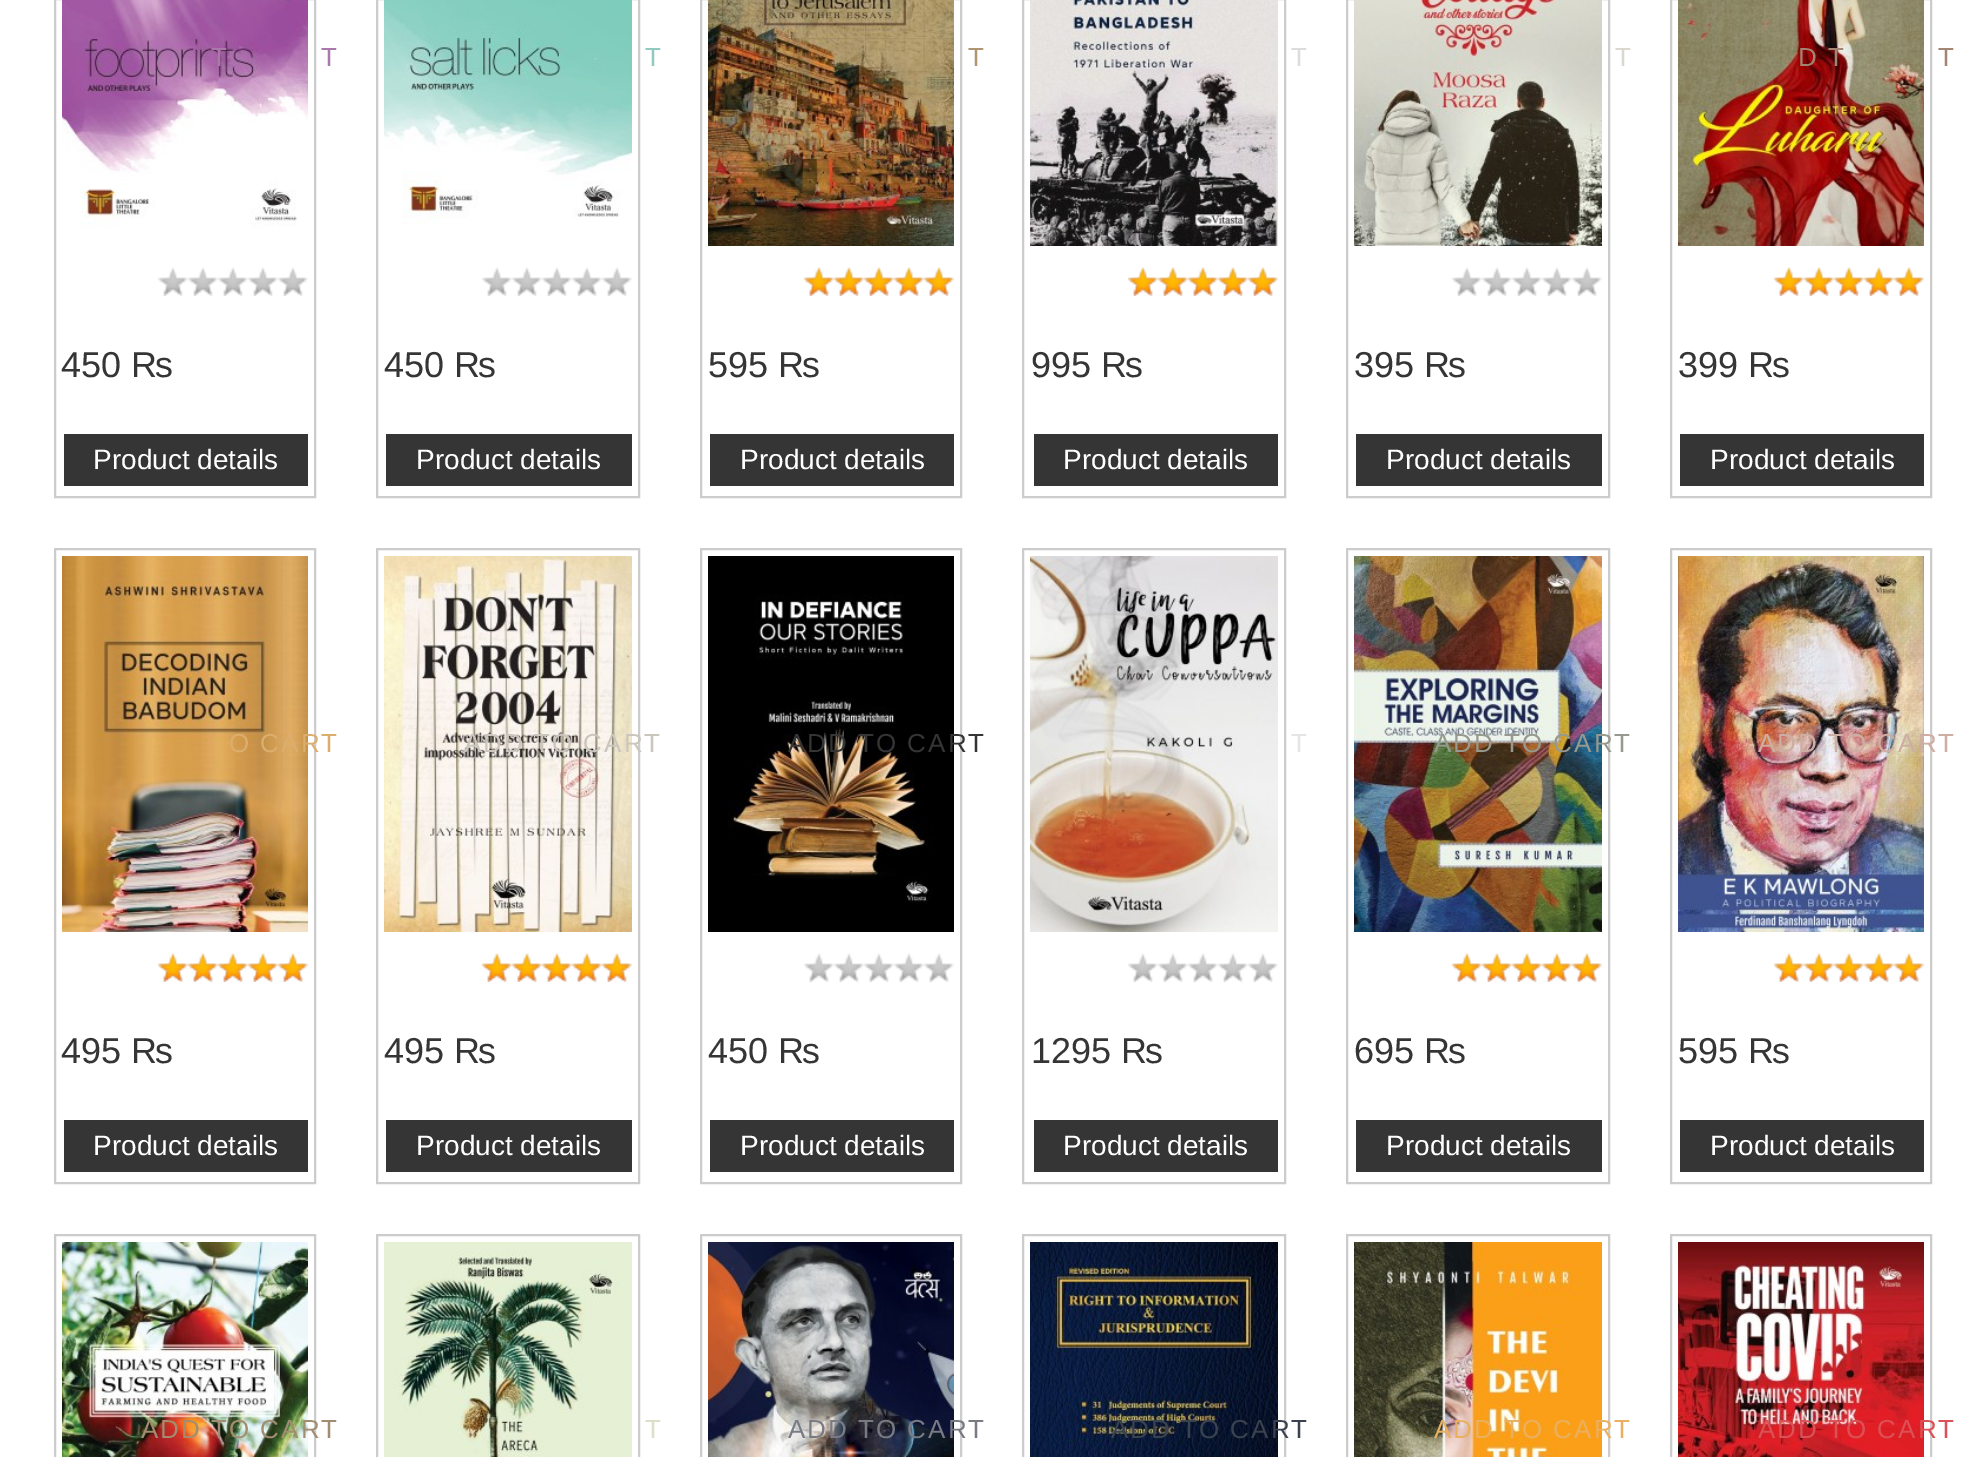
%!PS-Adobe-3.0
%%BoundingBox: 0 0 1986 1457
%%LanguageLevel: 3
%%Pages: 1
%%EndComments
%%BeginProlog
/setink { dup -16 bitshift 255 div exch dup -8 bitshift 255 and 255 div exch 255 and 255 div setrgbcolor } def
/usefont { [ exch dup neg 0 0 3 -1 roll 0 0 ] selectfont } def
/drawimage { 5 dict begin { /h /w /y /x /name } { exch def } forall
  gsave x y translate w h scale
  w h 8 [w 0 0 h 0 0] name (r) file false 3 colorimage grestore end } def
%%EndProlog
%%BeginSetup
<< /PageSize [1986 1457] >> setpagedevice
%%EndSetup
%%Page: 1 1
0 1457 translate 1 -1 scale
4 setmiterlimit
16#FFFFFF setink
0 0 1986 1457 rectfill
16#CCCCCC setink
2 setlinewidth
55 -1 260 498 rectstroke
(img1.raw) 62 0 246 227 drawimage
/LiberationSans-Regular 26 usefont
16#AB78AB setink
211 66 moveto 2 0 (T) ashow
321 66 moveto 2 0 (T) ashow
(img2.raw) 158 267 150 29 drawimage
/LiberationSans-Regular 36 usefont
16#353535 setink
61 377 moveto (450 ₨) show
64 434 244 52 rectfill
/LiberationSans-Regular 28 usefont
16#FFFFFF setink
93 469 moveto (Product details) show
16#CCCCCC setink
377 -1 262 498 rectstroke
(img3.raw) 384 0 248 225 drawimage
/LiberationSans-Regular 26 usefont
16#91CABF setink
645 66 moveto 2 0 (T) ashow
(img2.raw) 482 267 150 29 drawimage
/LiberationSans-Regular 36 usefont
16#353535 setink
384 377 moveto (450 ₨) show
386 434 246 52 rectfill
/LiberationSans-Regular 28 usefont
16#FFFFFF setink
416 469 moveto (Product details) show
16#CCCCCC setink
701 -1 260 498 rectstroke
(img4.raw) 708 0 246 246 drawimage
/LiberationSans-Regular 26 usefont
16#AF9670 setink
968 66 moveto 2 0 (T) ashow
(img2.raw) 804 267 150 29 drawimage
(img5.raw) 804 267 150 29 drawimage
/LiberationSans-Regular 36 usefont
16#353535 setink
708 377 moveto (595 ₨) show
710 434 244 52 rectfill
/LiberationSans-Regular 28 usefont
16#FFFFFF setink
740 469 moveto (Product details) show
16#CCCCCC setink
1023 -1 262 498 rectstroke
(img6.raw) 1030 0 248 246 drawimage
/LiberationSans-Regular 26 usefont
16#DEDCDB setink
1291 66 moveto 2 0 (T) ashow
(img2.raw) 1128 267 150 29 drawimage
(img5.raw) 1128 267 150 29 drawimage
/LiberationSans-Regular 36 usefont
16#353535 setink
1031 377 moveto (995 ₨) show
1034 434 244 52 rectfill
/LiberationSans-Regular 28 usefont
16#FFFFFF setink
1063 469 moveto (Product details) show
16#CCCCCC setink
1347 -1 262 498 rectstroke
(img7.raw) 1354 0 248 246 drawimage
/LiberationSans-Regular 26 usefont
16#D9D7CE setink
1615 66 moveto 2 0 (T) ashow
(img2.raw) 1452 267 150 29 drawimage
/LiberationSans-Regular 36 usefont
16#353535 setink
1354 377 moveto (395 ₨) show
1356 434 246 52 rectfill
/LiberationSans-Regular 28 usefont
16#FFFFFF setink
1386 469 moveto (Product details) show
16#CCCCCC setink
1671 -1 260 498 rectstroke
(img8.raw) 1678 0 246 246 drawimage
/LiberationSans-Regular 26 usefont
16#A28572 setink
1798 66 moveto 2 0 (D T) ashow
1938 66 moveto 2 0 (T) ashow
(img2.raw) 1774 267 150 29 drawimage
(img5.raw) 1774 267 150 29 drawimage
/LiberationSans-Regular 36 usefont
16#353535 setink
1678 377 moveto (399 ₨) show
1680 434 244 52 rectfill
/LiberationSans-Regular 28 usefont
16#FFFFFF setink
1710 469 moveto (Product details) show
16#CCCCCC setink
55 549 260 634 rectstroke
(img9.raw) 62 556 246 376 drawimage
/LiberationSans-Regular 26 usefont
16#DCAE6D setink
229 752 moveto 2 0 (O CART) ashow
(img2.raw) 158 953 150 29 drawimage
(img5.raw) 158 953 150 29 drawimage
/LiberationSans-Regular 36 usefont
16#353535 setink
61 1063 moveto (495 ₨) show
64 1120 244 52 rectfill
/LiberationSans-Regular 28 usefont
16#FFFFFF setink
93 1155 moveto (Product details) show
16#CCCCCC setink
377 549 262 634 rectstroke
(img10.raw) 384 556 248 376 drawimage
/LiberationSans-Regular 26 usefont
16#CBC6BD setink
464 752 moveto 2 0 (ADD TO CART) ashow
(img2.raw) 482 953 150 29 drawimage
(img5.raw) 482 953 150 29 drawimage
/LiberationSans-Regular 36 usefont
16#353535 setink
384 1063 moveto (495 ₨) show
386 1120 246 52 rectfill
/LiberationSans-Regular 28 usefont
16#FFFFFF setink
416 1155 moveto (Product details) show
16#CCCCCC setink
701 549 260 634 rectstroke
(img11.raw) 708 556 246 376 drawimage
/LiberationSans-Regular 26 usefont
16#353535 setink
788 752 moveto 2 0 (ADD TO CART) ashow
(img2.raw) 804 953 150 29 drawimage
/LiberationSans-Regular 36 usefont
708 1063 moveto (450 ₨) show
710 1120 244 52 rectfill
/LiberationSans-Regular 28 usefont
16#FFFFFF setink
740 1155 moveto (Product details) show
16#CCCCCC setink
1023 549 262 634 rectstroke
(img12.raw) 1030 556 248 376 drawimage
/LiberationSans-Regular 26 usefont
16#E5E5E4 setink
1291 752 moveto 2 0 (T) ashow
(img2.raw) 1128 953 150 29 drawimage
/LiberationSans-Regular 36 usefont
16#353535 setink
1031 1063 moveto (1295 ₨) show
1034 1120 244 52 rectfill
/LiberationSans-Regular 28 usefont
16#FFFFFF setink
1063 1155 moveto (Product details) show
16#CCCCCC setink
1347 549 262 634 rectstroke
(img13.raw) 1354 556 248 376 drawimage
/LiberationSans-Regular 26 usefont
16#97998E setink
1434 752 moveto 2 0 (ADD TO CART) ashow
(img2.raw) 1452 953 150 29 drawimage
(img5.raw) 1452 953 150 29 drawimage
/LiberationSans-Regular 36 usefont
16#353535 setink
1354 1063 moveto (695 ₨) show
1356 1120 246 52 rectfill
/LiberationSans-Regular 28 usefont
16#FFFFFF setink
1386 1155 moveto (Product details) show
16#CCCCCC setink
1671 549 260 634 rectstroke
(img14.raw) 1678 556 246 376 drawimage
/LiberationSans-Regular 26 usefont
16#CEADA2 setink
1758 752 moveto 2 0 (ADD TO CART) ashow
(img2.raw) 1774 953 150 29 drawimage
(img5.raw) 1774 953 150 29 drawimage
/LiberationSans-Regular 36 usefont
16#353535 setink
1678 1063 moveto (595 ₨) show
1680 1120 244 52 rectfill
/LiberationSans-Regular 28 usefont
16#FFFFFF setink
1710 1155 moveto (Product details) show
16#CCCCCC setink
55 1235 260 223 rectstroke
(img15.raw) 62 1242 246 215 drawimage
/LiberationSans-Regular 26 usefont
16#A28D70 setink
141 1438 moveto 2 0 (ADD TO CART) ashow
16#CCCCCC setink
377 1235 262 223 rectstroke
(img16.raw) 384 1242 248 215 drawimage
16#DBE0C7 setink
645 1438 moveto 2 0 (T) ashow
16#CCCCCC setink
701 1235 260 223 rectstroke
(img17.raw) 708 1242 246 215 drawimage
16#787A84 setink
788 1438 moveto 2 0 (ADD TO CART) ashow
16#CCCCCC setink
1023 1235 262 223 rectstroke
(img18.raw) 1030 1242 248 215 drawimage
16#3A424F setink
1111 1438 moveto 2 0 (ADD TO CART) ashow
16#CCCCCC setink
1347 1235 262 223 rectstroke
(img19.raw) 1354 1242 248 215 drawimage
16#EAB061 setink
1434 1438 moveto 2 0 (ADD TO CART) ashow
16#CCCCCC setink
1671 1235 260 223 rectstroke
(img20.raw) 1678 1242 246 215 drawimage
16#DC5156 setink
1758 1438 moveto 2 0 (ADD TO CART) ashow
showpage
%%EOF
